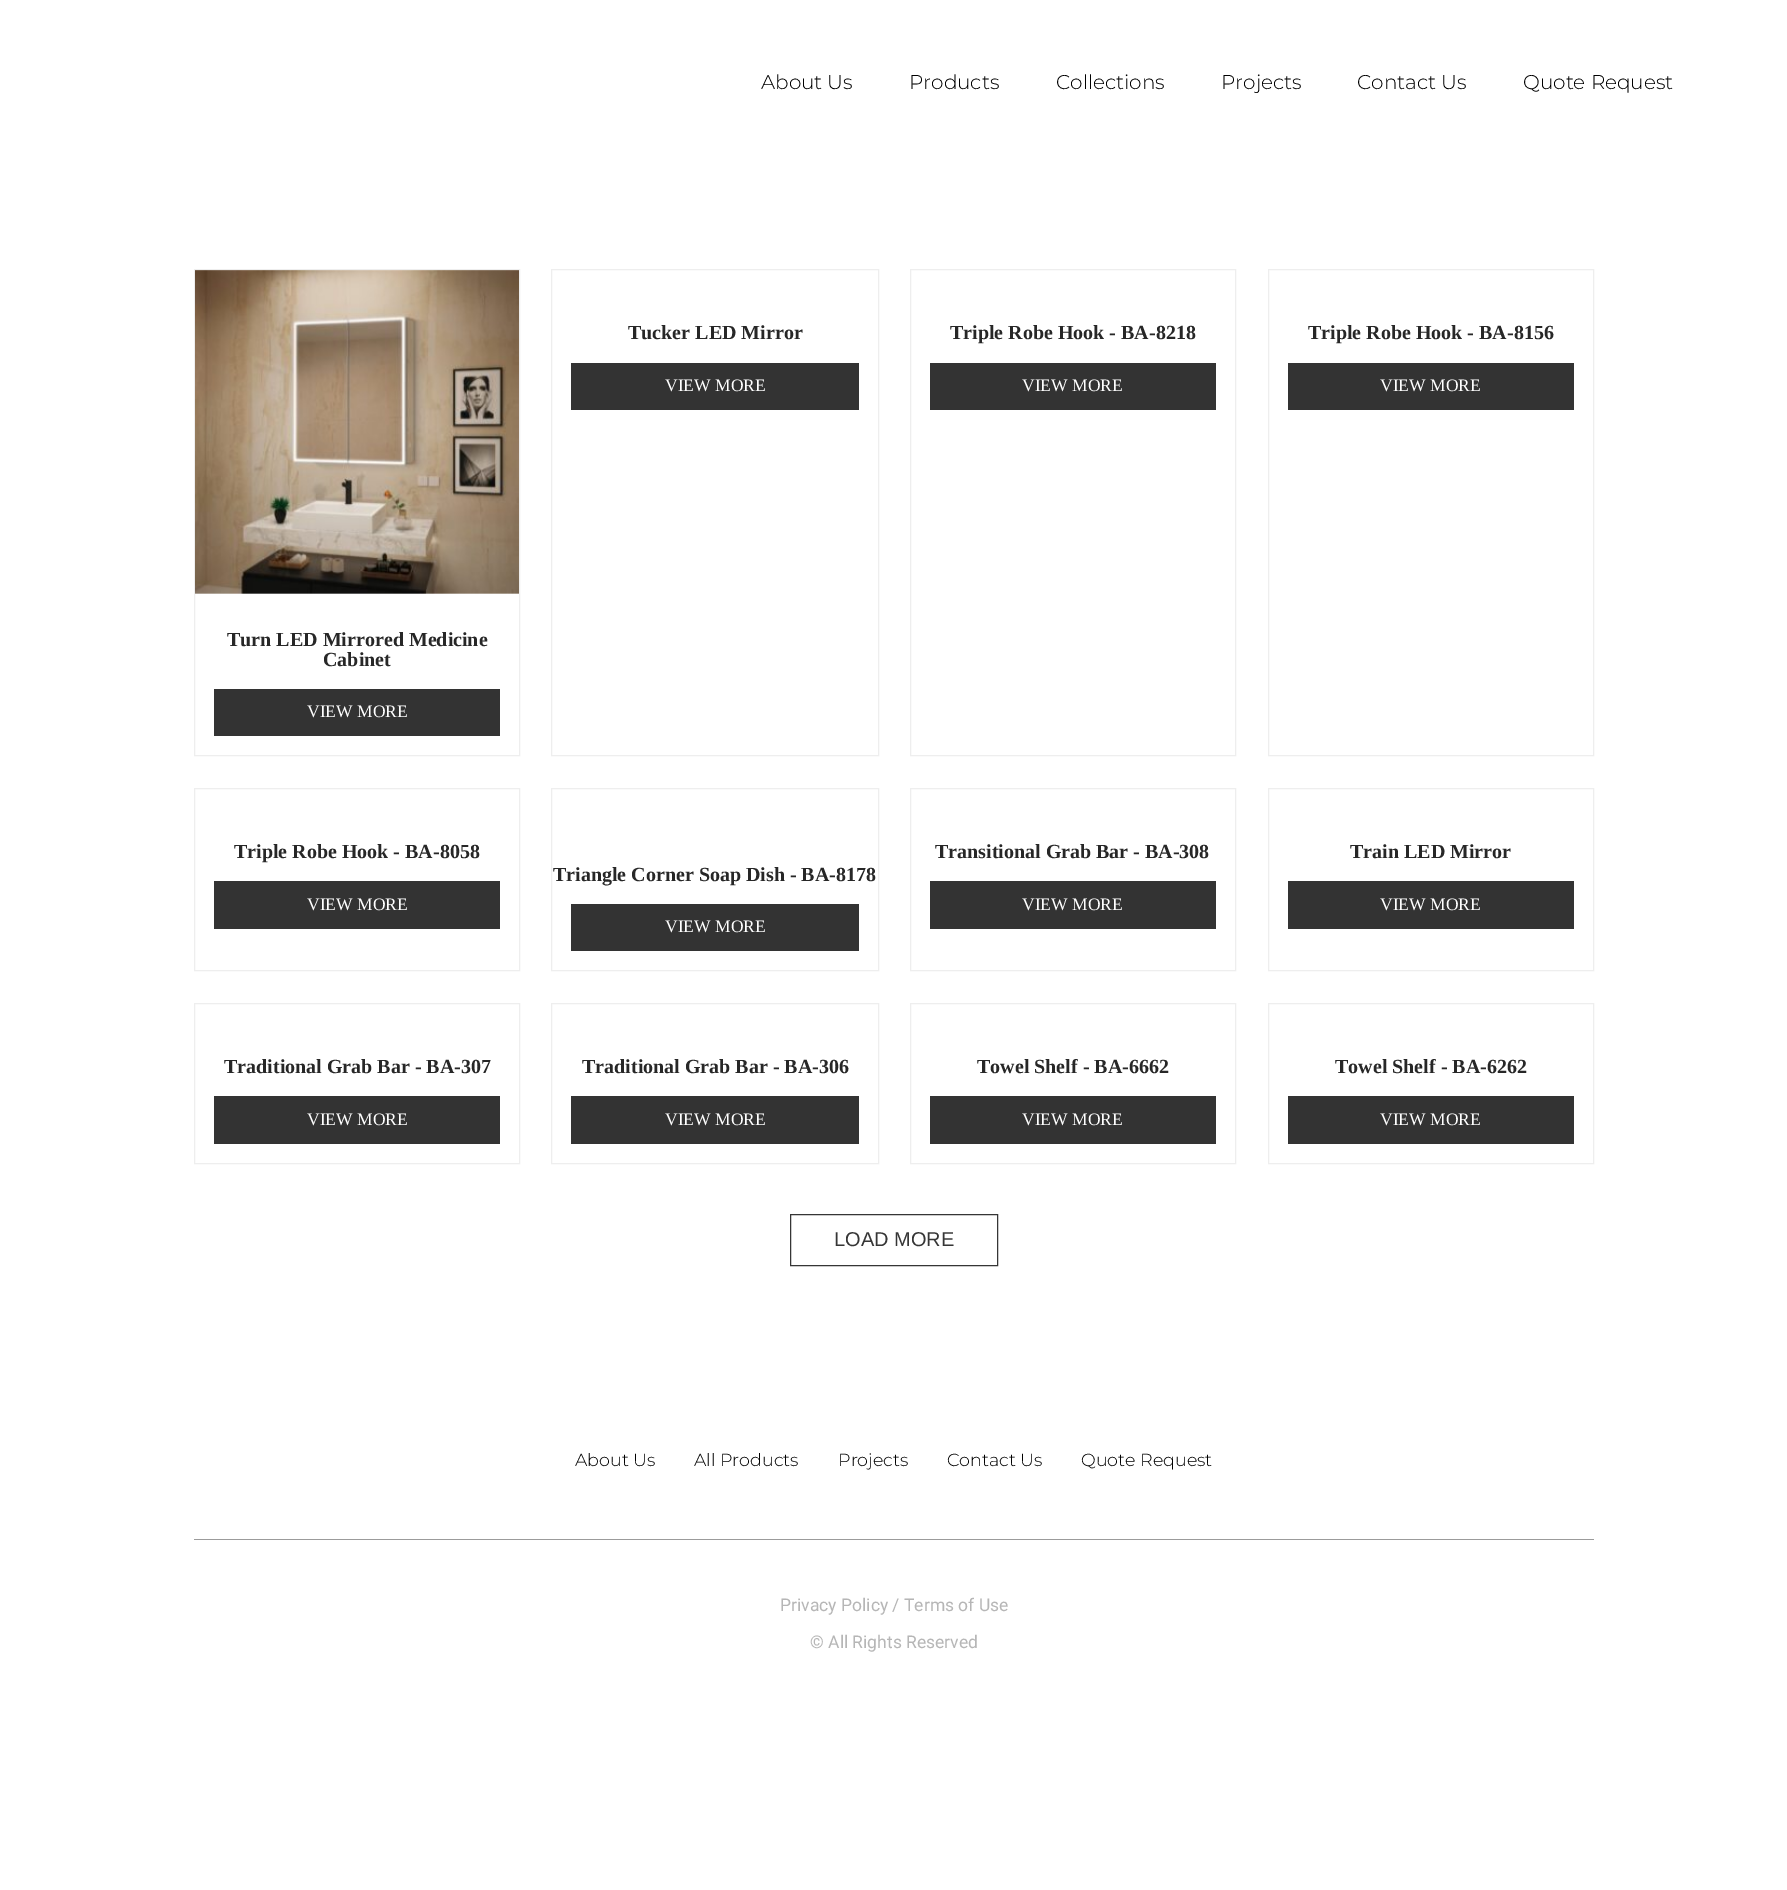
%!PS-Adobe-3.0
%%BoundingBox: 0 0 1787 1890
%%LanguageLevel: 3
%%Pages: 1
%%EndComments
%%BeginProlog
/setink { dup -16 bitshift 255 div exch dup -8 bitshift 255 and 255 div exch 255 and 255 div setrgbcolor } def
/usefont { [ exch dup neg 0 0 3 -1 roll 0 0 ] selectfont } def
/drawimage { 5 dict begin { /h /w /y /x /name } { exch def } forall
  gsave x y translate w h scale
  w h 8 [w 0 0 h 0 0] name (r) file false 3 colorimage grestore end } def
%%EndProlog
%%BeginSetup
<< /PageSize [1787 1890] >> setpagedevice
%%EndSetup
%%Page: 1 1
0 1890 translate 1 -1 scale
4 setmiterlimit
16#FFFFFF setink
0 0 1787 1890 rectfill
/Montserrat-Light 20 usefont
16#000000 setink
[
    [(About Us) 761 89]
    [(Products) 909 89]
    [(Collections) 1056 89]
    [(Projects) 1221 89]
    [(Contact Us) 1357 89]
    [(Quote Request) 1523 89]
] { aload pop moveto show } forall
16#EEEEEE setink
551.5 269.5 327 486 rectstroke
/LiberationSerif-Bold 20 usefont
16#272727 setink
628 339 moveto (Tucker LED Mirror) show
16#333333 setink
571 363 288 47 rectfill
/LiberationSerif-Regular 17.5 usefont
16#FFFFFF setink
665 391 moveto (VIEW MORE) show
16#EEEEEE setink
910.5 269.5 325 486 rectstroke
/LiberationSerif-Bold 20 usefont
16#272727 setink
950 339 moveto (Triple Robe Hook - BA-8218) show
16#333333 setink
930 363 286 47 rectfill
/LiberationSerif-Regular 17.5 usefont
16#FFFFFF setink
1022 391 moveto (VIEW MORE) show
16#EEEEEE setink
1268.5 269.5 325 486 rectstroke
/LiberationSerif-Bold 20 usefont
16#272727 setink
1308 339 moveto (Triple Robe Hook - BA-8156) show
16#333333 setink
1288 363 286 47 rectfill
/LiberationSerif-Regular 17.5 usefont
16#FFFFFF setink
1380 391 moveto (VIEW MORE) show
16#EEEEEE setink
194.5 269.5 325 486 rectstroke
(img1.raw) 195 270 324 324 drawimage
/LiberationSerif-Bold 20 usefont
16#272727 setink
227 646 moveto (Turn LED Mirrored Medicine) show
323 666 moveto (Cabinet) show
16#333333 setink
214 689 286 47 rectfill
/LiberationSerif-Regular 17.5 usefont
16#FFFFFF setink
307 717 moveto (VIEW MORE) show
16#EEEEEE setink
194.5 788.5 325 182 rectstroke
/LiberationSerif-Bold 20 usefont
16#272727 setink
234 858 moveto (Triple Robe Hook - BA-8058) show
16#333333 setink
214 881 286 48 rectfill
/LiberationSerif-Regular 17.5 usefont
16#FFFFFF setink
307 910 moveto (VIEW MORE) show
16#EEEEEE setink
551.5 788.5 327 182 rectstroke
/LiberationSerif-Bold 20 usefont
16#272727 setink
553 881 moveto (Triangle Corner Soap Dish - BA-8178) show
16#333333 setink
571 904 288 47 rectfill
/LiberationSerif-Regular 17.5 usefont
16#FFFFFF setink
665 932 moveto (VIEW MORE) show
16#EEEEEE setink
910.5 788.5 325 182 rectstroke
/LiberationSerif-Bold 20 usefont
16#272727 setink
935 858 moveto (Transitional Grab Bar - BA-308) show
16#333333 setink
930 881 286 48 rectfill
/LiberationSerif-Regular 17.5 usefont
16#FFFFFF setink
1022 910 moveto (VIEW MORE) show
16#EEEEEE setink
1268.5 788.5 325 182 rectstroke
/LiberationSerif-Bold 20 usefont
16#272727 setink
1350 858 moveto (Train LED Mirror) show
16#333333 setink
1288 881 286 48 rectfill
/LiberationSerif-Regular 17.5 usefont
16#FFFFFF setink
1380 910 moveto (VIEW MORE) show
16#EEEEEE setink
194.5 1003.5 325 160 rectstroke
/LiberationSerif-Bold 20 usefont
16#272727 setink
224 1073 moveto (Traditional Grab Bar - BA-307) show
16#333333 setink
214 1096 286 48 rectfill
/LiberationSerif-Regular 17.5 usefont
16#FFFFFF setink
307 1125 moveto (VIEW MORE) show
16#EEEEEE setink
551.5 1003.5 327 160 rectstroke
/LiberationSerif-Bold 20 usefont
16#272727 setink
582 1073 moveto (Traditional Grab Bar - BA-306) show
16#333333 setink
571 1096 288 48 rectfill
/LiberationSerif-Regular 17.5 usefont
16#FFFFFF setink
665 1125 moveto (VIEW MORE) show
16#EEEEEE setink
910.5 1003.5 325 160 rectstroke
/LiberationSerif-Bold 20 usefont
16#272727 setink
977 1073 moveto (Towel Shelf - BA-6662) show
16#333333 setink
930 1096 286 48 rectfill
/LiberationSerif-Regular 17.5 usefont
16#FFFFFF setink
1022 1125 moveto (VIEW MORE) show
16#EEEEEE setink
1268.5 1003.5 325 160 rectstroke
/LiberationSerif-Bold 20 usefont
16#272727 setink
1335 1073 moveto (Towel Shelf - BA-6262) show
16#333333 setink
1288 1096 286 48 rectfill
/LiberationSerif-Regular 17.5 usefont
16#FFFFFF setink
1380 1125 moveto (VIEW MORE) show
16#363636 setink
790.5 1214.5 207 51 rectstroke
/LiberationSans-Regular 20 usefont
834 1246 moveto (LOAD MORE) show
16#9B9B9B setink
194 1539 1400 1 rectfill
/Montserrat-Light 17.5 usefont
16#000000 setink
[
    [(About Us) 575 1466]
    [(All Products) 694 1466]
    [(Projects) 838 1466]
    [(Contact Us) 947 1466]
    [(Quote Request) 1081 1466]
] { aload pop moveto show } forall
/Roboto-Regular 17.5 usefont
16#B6B6B6 setink
780 1611 moveto (Privacy Policy / Terms of Use) show
810 1648 moveto (© All Rights Reserved) show
showpage
%%EOF
